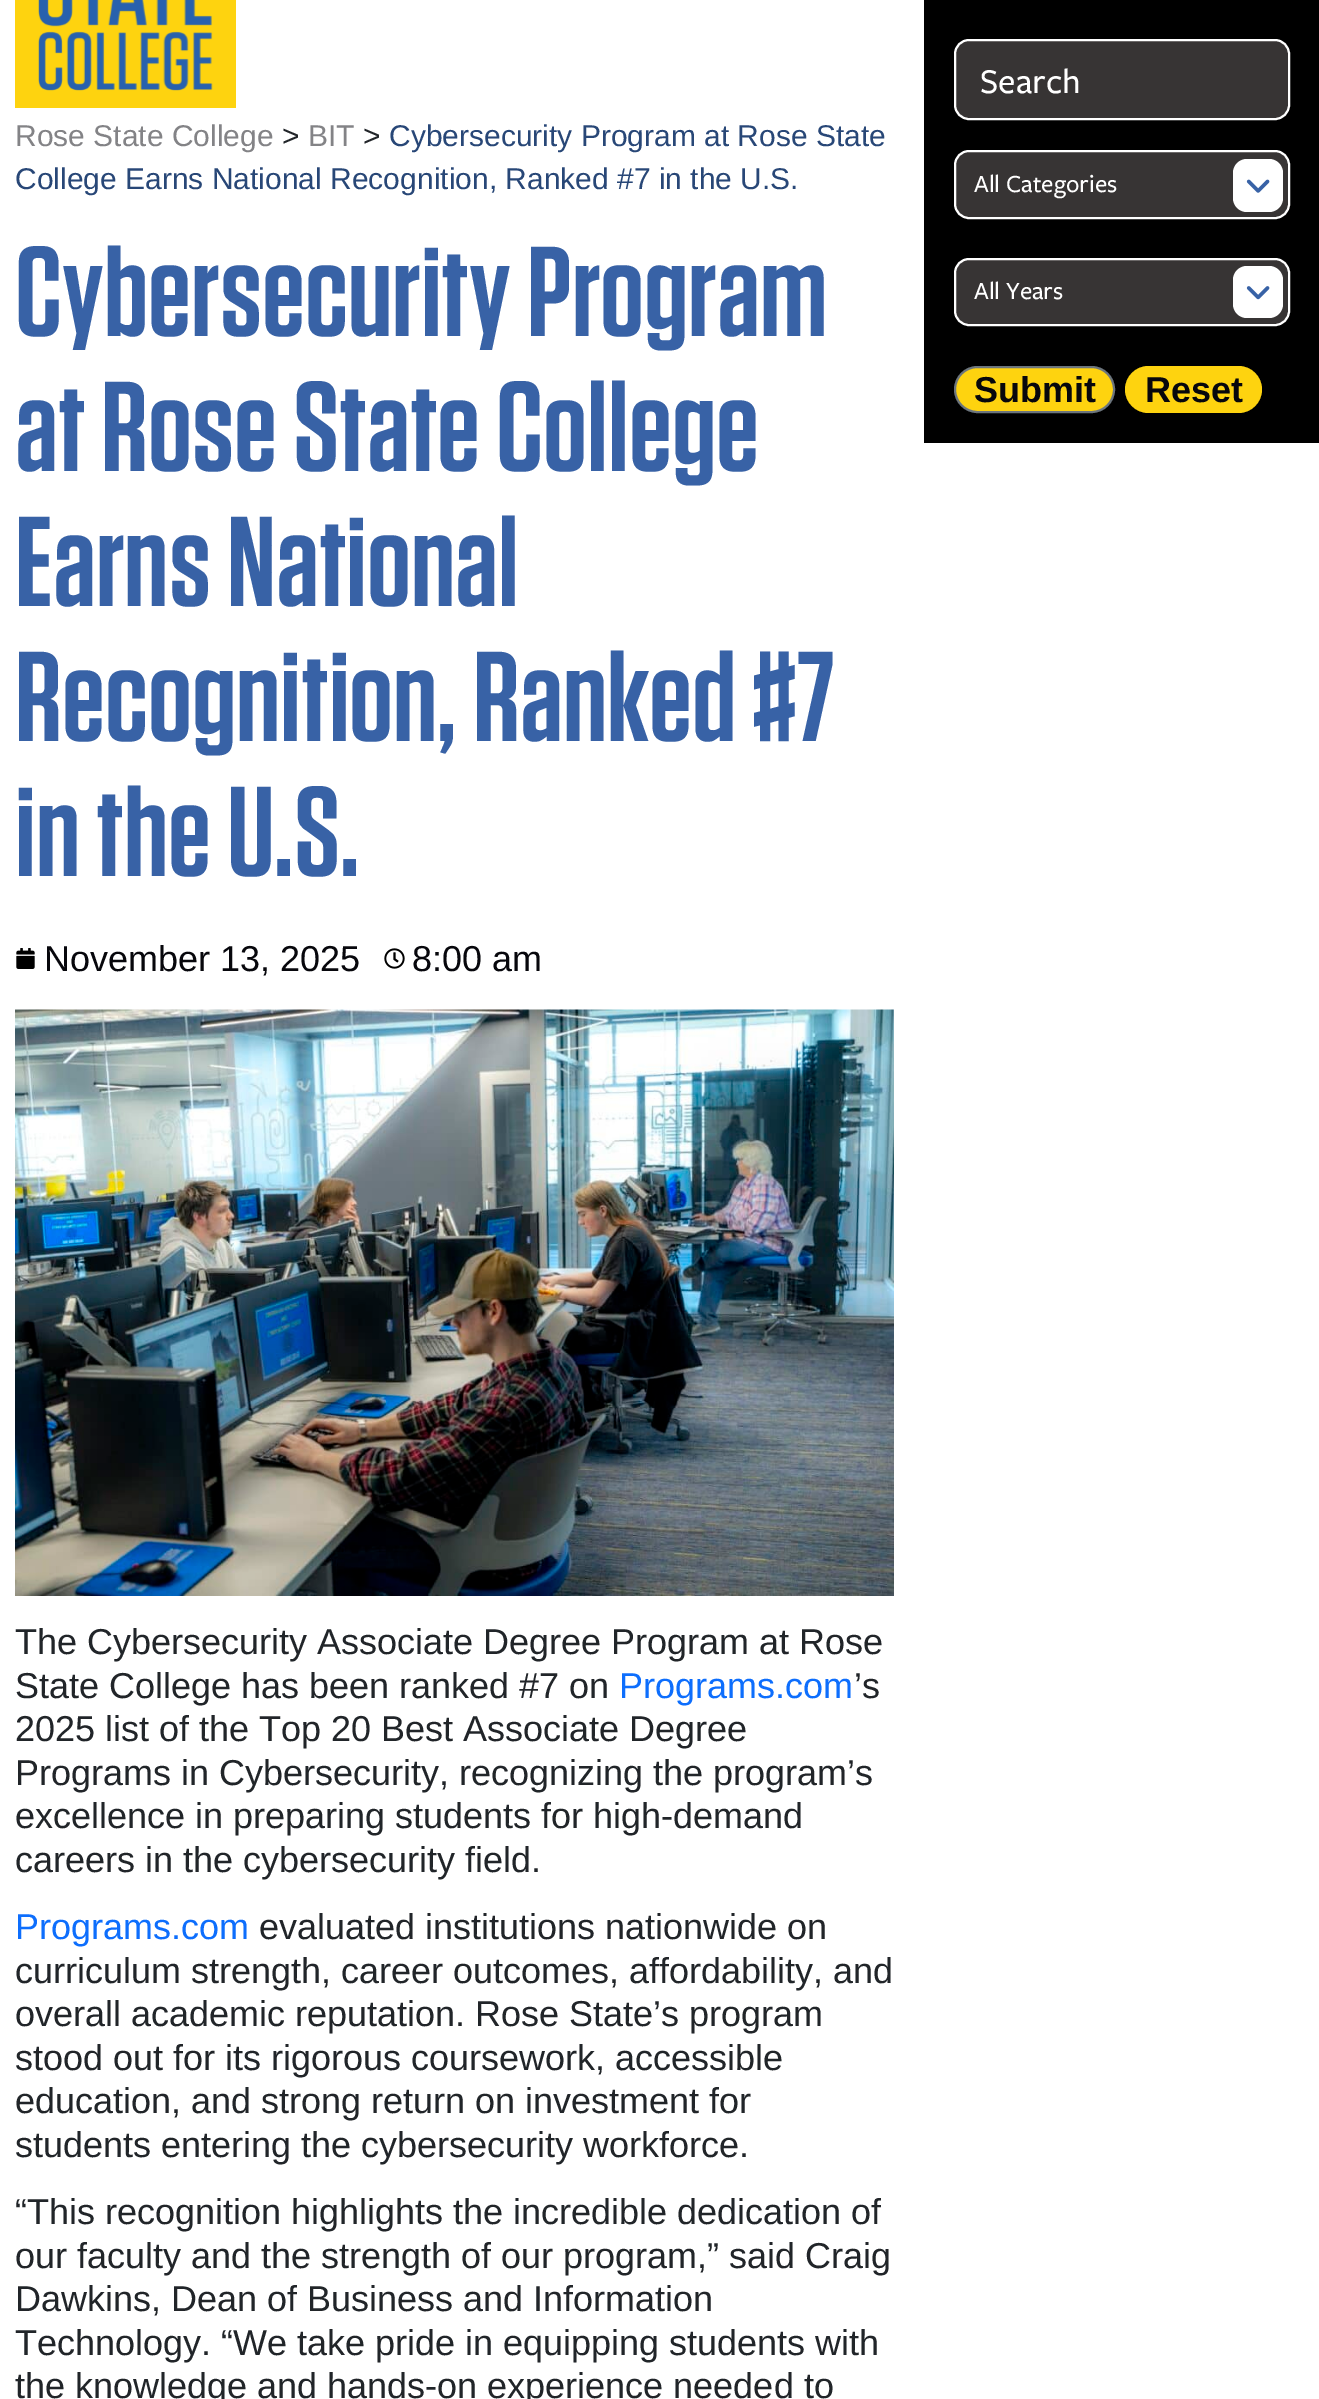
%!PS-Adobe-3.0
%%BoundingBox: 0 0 1319 2399
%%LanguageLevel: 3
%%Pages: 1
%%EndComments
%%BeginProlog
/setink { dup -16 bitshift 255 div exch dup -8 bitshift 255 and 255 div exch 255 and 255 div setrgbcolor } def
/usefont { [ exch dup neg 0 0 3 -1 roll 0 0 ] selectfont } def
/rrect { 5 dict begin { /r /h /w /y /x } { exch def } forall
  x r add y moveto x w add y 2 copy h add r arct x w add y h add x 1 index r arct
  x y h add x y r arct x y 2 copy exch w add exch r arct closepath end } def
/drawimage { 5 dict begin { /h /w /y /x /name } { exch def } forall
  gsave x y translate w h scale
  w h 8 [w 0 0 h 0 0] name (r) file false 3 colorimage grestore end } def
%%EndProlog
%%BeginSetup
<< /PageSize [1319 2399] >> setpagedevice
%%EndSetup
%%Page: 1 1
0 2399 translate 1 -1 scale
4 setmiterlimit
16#FFFFFF setink
0 0 1319 2399 rectfill
16#FED30F setink
15 0 221 108 rectfill
(img1.raw) 38 0 175 91 drawimage
/LiberationSans-Regular 30 usefont
16#838386 setink
15 146 moveto (Rose State College) show
16#212529 setink
282 146 moveto (>) show
16#838386 setink
308 146 moveto (BIT) show
16#212529 setink
363 146 moveto (>) show
16#284777 setink
389 146 moveto (Cybersecurity Program at Rose State) show
15 189 moveto (College Earns National Recognition, Ranked #7 in the U.S.) show
/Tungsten-SemiBold 127.5 usefont
16#3862A6 setink
[
    [(Cybersecurity Program) 15 336]
    [(at Rose State College) 15 471]
    [(Earns National) 15 606]
    [(Recognition, Ranked #7) 15 741]
    [(in the U.S.) 15 876]
] { aload pop moveto show } forall
(img2.raw) 16 948 19 21 drawimage
/LiberationSans-Regular 36 usefont
16#07070C setink
44 971 moveto (November 13, 2025) show
(img3.raw) 384 948 21 21 drawimage
412 971 moveto (8:00 am) show
(img4.raw) 15 1009 879 587 drawimage
16#212529 setink
15 1654 moveto (The Cybersecurity Associate Degree Program at Rose) show
15 1698 moveto (State College has been ranked #7 on) show
16#0D6EFD setink
619 1698 moveto (Programs.com) show
16#212529 setink
[
    [(’s) 854 1698]
    [(2025 list of the Top 20 Best Associate Degree) 15 1741]
    [(Programs in Cybersecurity, recognizing the program’s) 15 1785]
    [(excellence in preparing students for high-demand) 15 1828]
    [(careers in the cybersecurity field.) 15 1872]
] { aload pop moveto show } forall
16#0D6EFD setink
15 1939 moveto (Programs.com) show
16#212529 setink
[
    [(evaluated institutions nationwide on) 259 1939]
    [(curriculum strength, career outcomes, affordability, and) 15 1983]
    [(overall academic reputation. Rose State’s program) 15 2026]
    [(stood out for its rigorous coursework, accessible) 15 2070]
    [(education, and strong return on investment for) 15 2113]
    [(students entering the cybersecurity workforce.) 15 2157]
    [(“This recognition highlights the incredible dedication of) 15 2224]
    [(our faculty and the strength of our program,” said Craig) 15 2268]
    [(Dawkins, Dean of Business and Information) 15 2311]
    [(Technology. “We take pride in equipping students with) 15 2355]
    [(the knowledge and hands-on experience needed to) 15 2398]
] { aload pop moveto show } forall
16#000000 setink
924 0 395 443 rectfill
16#373434 setink
955 40 334 79 14 rrect gsave fill grestore
16#FFFFFF setink
2 setlinewidth
stroke
/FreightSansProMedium-Medium 36 usefont
980 93 moveto (Search) show
16#373434 setink
955 151 334 67 14 rrect gsave fill grestore
16#FFFFFF setink
stroke
/FreightSansProMedium-Medium 25.5 usefont
974 192 moveto (All Categories) show
1233 159 50 53 14 rrect fill
(img5.raw) 1246 179 24 14 drawimage
16#373434 setink
955 259 334 66 14 rrect gsave fill grestore
16#FFFFFF setink
stroke
974 299 moveto (All Years) show
1233 266 50 52 14 rrect fill
(img6.raw) 1246 286 24 14 drawimage
16#FED30F setink
955 367 159 45 22.5 rrect gsave fill grestore
16#6C757D setink
stroke
/LiberationSans-Bold 36 usefont
16#07070C setink
974 402 moveto (Submit) show
16#FED30F setink
1125 366 137 47 23.5 rrect fill
16#07070C setink
1145 402 moveto (Reset) show
showpage
%%EOF
